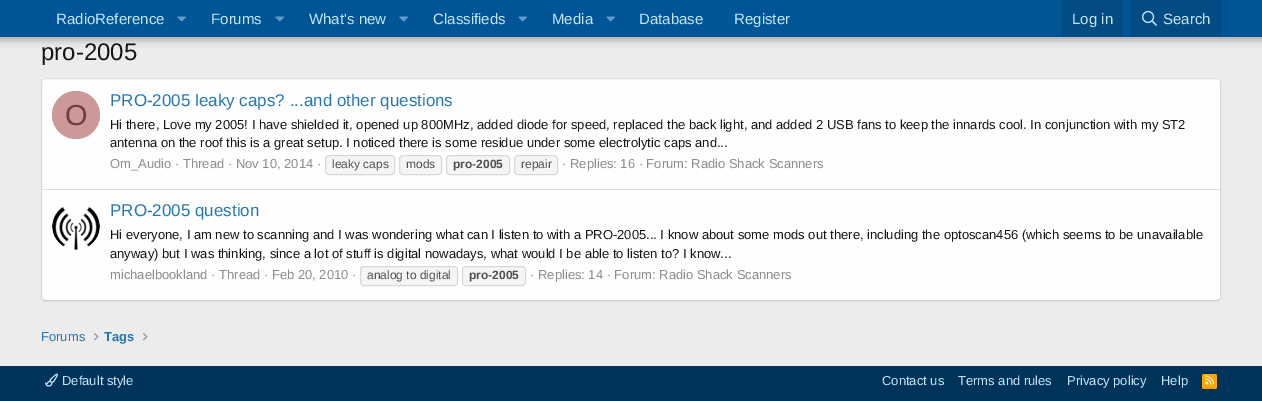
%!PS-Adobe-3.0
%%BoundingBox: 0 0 1262 401
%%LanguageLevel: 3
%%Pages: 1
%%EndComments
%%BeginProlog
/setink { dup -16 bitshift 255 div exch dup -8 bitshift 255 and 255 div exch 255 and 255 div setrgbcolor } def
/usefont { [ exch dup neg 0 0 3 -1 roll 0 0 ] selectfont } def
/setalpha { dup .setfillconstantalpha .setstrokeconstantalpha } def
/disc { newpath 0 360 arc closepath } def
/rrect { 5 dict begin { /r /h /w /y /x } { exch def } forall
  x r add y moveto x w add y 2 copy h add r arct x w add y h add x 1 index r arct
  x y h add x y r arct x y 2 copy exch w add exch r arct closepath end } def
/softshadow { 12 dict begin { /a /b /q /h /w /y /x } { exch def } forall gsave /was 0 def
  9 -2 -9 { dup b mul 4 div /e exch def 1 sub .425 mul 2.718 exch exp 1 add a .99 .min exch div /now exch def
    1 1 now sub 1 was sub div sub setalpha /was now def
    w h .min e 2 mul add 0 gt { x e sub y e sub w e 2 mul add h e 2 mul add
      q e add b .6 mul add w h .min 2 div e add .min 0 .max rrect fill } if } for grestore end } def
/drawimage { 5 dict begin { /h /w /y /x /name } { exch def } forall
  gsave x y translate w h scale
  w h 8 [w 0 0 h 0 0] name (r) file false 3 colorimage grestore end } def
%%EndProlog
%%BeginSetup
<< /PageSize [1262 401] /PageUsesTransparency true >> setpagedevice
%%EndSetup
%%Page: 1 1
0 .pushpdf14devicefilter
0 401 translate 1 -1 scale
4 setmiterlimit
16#ECECEC setink
0 0 1262 401 rectfill
16#000000 setink
-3 -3 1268 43 0 4 0.3 softshadow
16#005597 setink
0 0 1262 37 rectfill
/LiberationSans-Regular 15 usefont
16#C5E5F8 setink
56 24 moveto (RadioReference) show
(img1.raw) 177 16 9 6 drawimage
211 24 moveto (Forums) show
(img1.raw) 275 16 9 6 drawimage
309 24 moveto (What's new) show
(img1.raw) 399 16 9 6 drawimage
433 24 moveto (Classifieds) show
(img1.raw) 518 16 9 6 drawimage
552 24 moveto (Media) show
(img1.raw) 606 16 9 6 drawimage
639 24 moveto (Database) show
734 24 moveto (Register) show
16#034B83 setink
1062 0 61 37 rectfill
16#C5E5F8 setink
1072 24 moveto (Log in) show
16#034B83 setink
1134 0 moveto 1217 0 lineto 1219 0 1221 2 1221 4 curveto 1221 37 lineto 1130 37 lineto 1130 4 lineto 1130 2 1132 0 1134 0 curveto closepath fill
(img2.raw) 1142 10 15 16 drawimage
16#C5E5F8 setink
1163 24 moveto (Search) show
/LiberationSans-Regular 24 usefont
16#141414 setink
41 60 moveto (pro-2005) show
16#FEFEFE setink
41 78 1180 223 4 rrect fill
16#DFDFDF setink
42.5 79.5 moveto 45 78.5 lineto 1217 78.5 lineto 1219.5 79.5 lineto stroke
16#D8D8D8 setink
1219.5 79.5 moveto 1220 80 1220.5 81 1220.5 82 curveto 1220.5 297 lineto 1220.5 298 1220 299 1219.5 299.5 curveto stroke
16#CBCBCB setink
1219.5 299.5 moveto 1217 300.5 lineto 45 300.5 lineto 42.5 299.5 lineto stroke
16#D8D8D8 setink
42.5 299.5 moveto 42 299 41.5 298 41.5 297 curveto 41.5 82 lineto 41.5 81 42 80 42.5 79.5 curveto stroke
16#CC9999 setink
76 115 24 disc fill
/LiberationSans-Regular 29 usefont
16#773C3C setink
65 125 moveto (O) show
/LiberationSans-Regular 17 usefont
16#2577B1 setink
110 106 moveto (PRO-2005 leaky caps? ...and other questions) show
/LiberationSans-Regular 13 usefont
16#141414 setink
110 129 moveto (Hi there, Love my 2005! I have shielded it, opened up 800MHz, added diode for speed, replaced the back light, and added 2 USB fans to keep the innards cool. In conjunction with my ST2) show
110 147 moveto (antenna on the roof this is a great setup. I noticed there is some residue under some electrolytic caps and...) show
16#8C8C8C setink
110 168 moveto (Om_Audio · Thread · Nov 10, 2014 ·) show
16#F5F5F5 setink
325.5 155.5 69 19 3.5 rrect gsave fill grestore
16#D8D8D8 setink
stroke
/LiberationSans-Regular 12 usefont
16#505050 setink
332 168 moveto (leaky caps) show
16#F5F5F5 setink
399.5 155.5 42 19 3.5 rrect gsave fill grestore
16#D8D8D8 setink
stroke
16#505050 setink
406 168 moveto (mods) show
16#F5F5F5 setink
446.5 155.5 63 19 3.5 rrect gsave fill grestore
16#D8D8D8 setink
stroke
/LiberationSans-Bold 12 usefont
16#505050 setink
453 168 moveto (pro-2005) show
16#F5F5F5 setink
514.5 155.5 43 19 3.5 rrect gsave fill grestore
16#D8D8D8 setink
stroke
/LiberationSans-Regular 12 usefont
16#505050 setink
521 168 moveto (repair) show
/LiberationSans-Regular 13 usefont
16#8C8C8C setink
562 168 moveto (· Replies: 16 · Forum: Radio Shack Scanners) show
16#DFDFDF setink
42 189 1178 1 rectfill
(img3.raw) 52 207 48 43 drawimage
/LiberationSans-Regular 17 usefont
16#2577B1 setink
110 216 moveto (PRO-2005 question) show
/LiberationSans-Regular 13 usefont
16#141414 setink
110 239 moveto (Hi everyone, I am new to scanning and I was wondering what can I listen to with a PRO-2005... I know about some mods out there, including the optoscan456 \(which seems to be unavailable) show
110 258 moveto (anyway\) but I was thinking, since a lot of stuff is digital nowadays, what would I be able to listen to? I know...) show
16#8C8C8C setink
110 279 moveto (michaelbookland · Thread · Feb 20, 2010 ·) show
16#F5F5F5 setink
360.5 266.5 97 19 3.5 rrect gsave fill grestore
16#D8D8D8 setink
stroke
/LiberationSans-Regular 12 usefont
16#505050 setink
367 279 moveto (analog to digital) show
16#F5F5F5 setink
462.5 266.5 63 19 3.5 rrect gsave fill grestore
16#D8D8D8 setink
stroke
/LiberationSans-Bold 12 usefont
16#505050 setink
469 279 moveto (pro-2005) show
/LiberationSans-Regular 13 usefont
16#8C8C8C setink
530 279 moveto (· Replies: 14 · Forum: Radio Shack Scanners) show
16#2577B1 setink
41 341 moveto (Forums) show
(img4.raw) 94 333 5 8 drawimage
/LiberationSans-Bold 13 usefont
104 341 moveto (Tags) show
(img4.raw) 143 333 5 8 drawimage
16#00335A setink
0 366 1262 35 rectfill
(img5.raw) 45 373 13 14 drawimage
/LiberationSans-Regular 13 usefont
16#C5E5F8 setink
[
    [(Default style) 62 385]
    [(Contact us) 882 385]
    [(Terms and rules) 958 385]
    [(Privacy policy) 1067 385]
    [(Help) 1161 385]
] { aload pop moveto show } forall
16#FFA500 setink
1202 374 15 15 2 rrect fill
(img6.raw) 1205 375 10 10 drawimage
.poppdf14devicefilter showpage
%%EOF
